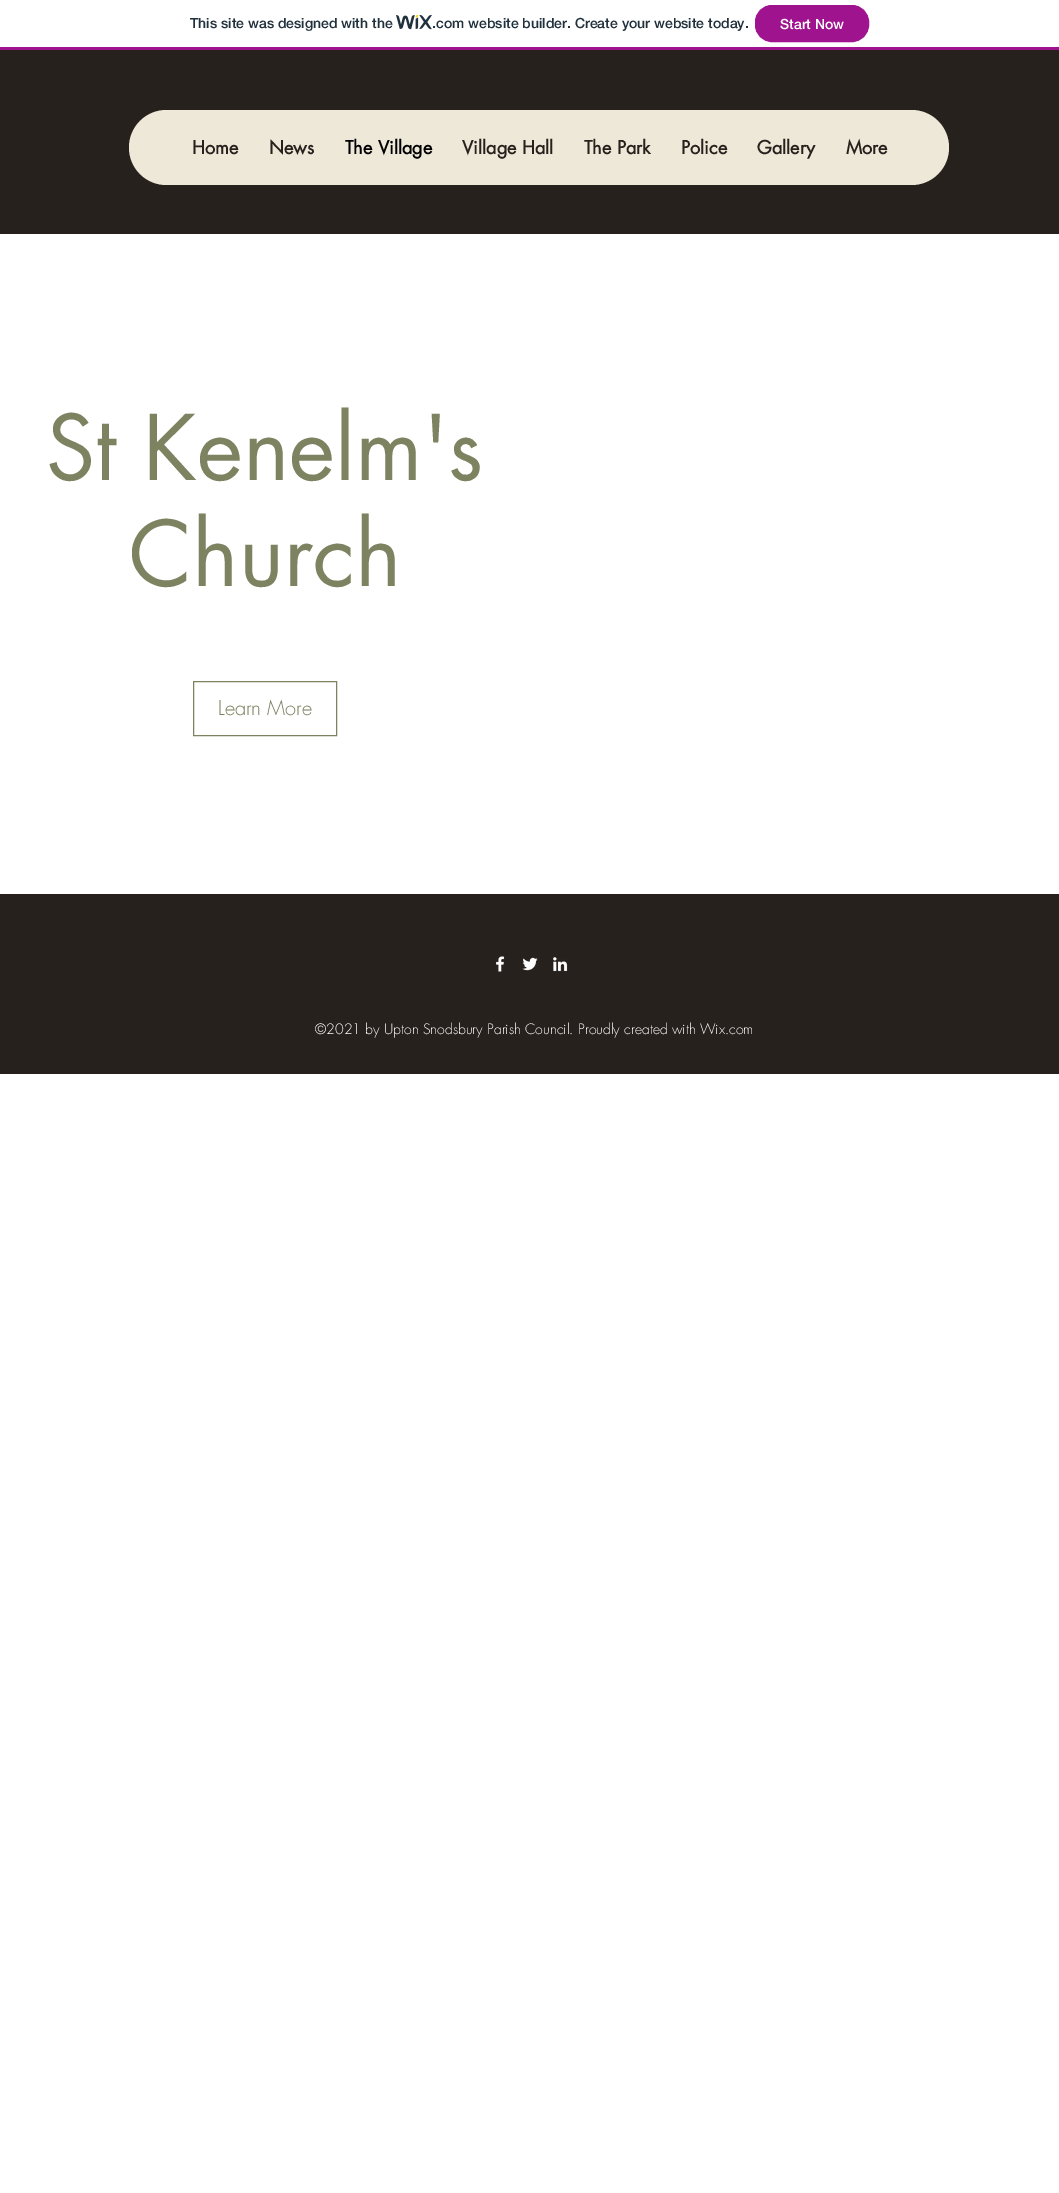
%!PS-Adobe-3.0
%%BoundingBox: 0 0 1059 2193
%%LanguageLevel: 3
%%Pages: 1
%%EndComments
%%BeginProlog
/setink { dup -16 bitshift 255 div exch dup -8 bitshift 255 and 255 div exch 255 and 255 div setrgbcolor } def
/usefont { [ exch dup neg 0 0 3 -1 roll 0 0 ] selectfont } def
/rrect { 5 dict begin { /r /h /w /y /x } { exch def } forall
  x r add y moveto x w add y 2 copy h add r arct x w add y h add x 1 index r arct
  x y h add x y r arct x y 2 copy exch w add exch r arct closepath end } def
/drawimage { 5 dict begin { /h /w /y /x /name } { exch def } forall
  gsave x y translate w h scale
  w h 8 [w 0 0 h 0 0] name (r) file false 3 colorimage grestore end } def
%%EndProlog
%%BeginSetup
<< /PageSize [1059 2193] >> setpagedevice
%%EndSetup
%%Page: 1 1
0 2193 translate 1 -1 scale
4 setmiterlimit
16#FFFFFF setink
0 0 1059 2193 rectfill
16#A0138E setink
0 47 1059 3 rectfill
/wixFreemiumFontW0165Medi-Medium 14 usefont
16#20303C setink
190 28 moveto (This site was designed with the) show
(img1.raw) 396 15 36 15 drawimage
432 28 moveto (.com website builder. Create your website today.) show
16#A0138E setink
755.5 5.5 113 36 16.5 rrect gsave fill grestore
stroke
16#FFFFFF setink
780 29 moveto (Start Now) show
16#27211E setink
0 50 1059 184 rectfill
16#EEE8D8 setink
129 110 820 75 37.5 rrect fill
/futura-Bold 18 usefont
16#27211E setink
192 154 moveto (Home) show
269 154 moveto (News) show
16#000000 setink
345 154 moveto (The Village) show
16#27211E setink
[
    [(Village Hall) 462 154]
    [(The Park) 584 154]
    [(Police) 681 154]
    [(Gallery) 757 154]
    [(More) 846 154]
] { aload pop moveto show } forall
/futura-Regular 88 usefont
16#7D8260 setink
46 480 moveto (St Kenelm's) show
129 586 moveto (Church) show
193.5 681.5 143 54 rectstroke
/futura-Light 20 usefont
218 715 moveto (Learn More) show
16#27211E setink
0 894 1059 180 rectfill
(img2.raw) 496 956 9 16 drawimage
(img3.raw) 522 957 16 14 drawimage
(img4.raw) 553 957 15 15 drawimage
/futura-Light 14 usefont
16#FFFFFF setink
315 1034 moveto (©2021 by Upton Snodsbury Parish Council. Proudly created with Wix.com) show
showpage
%%EOF
